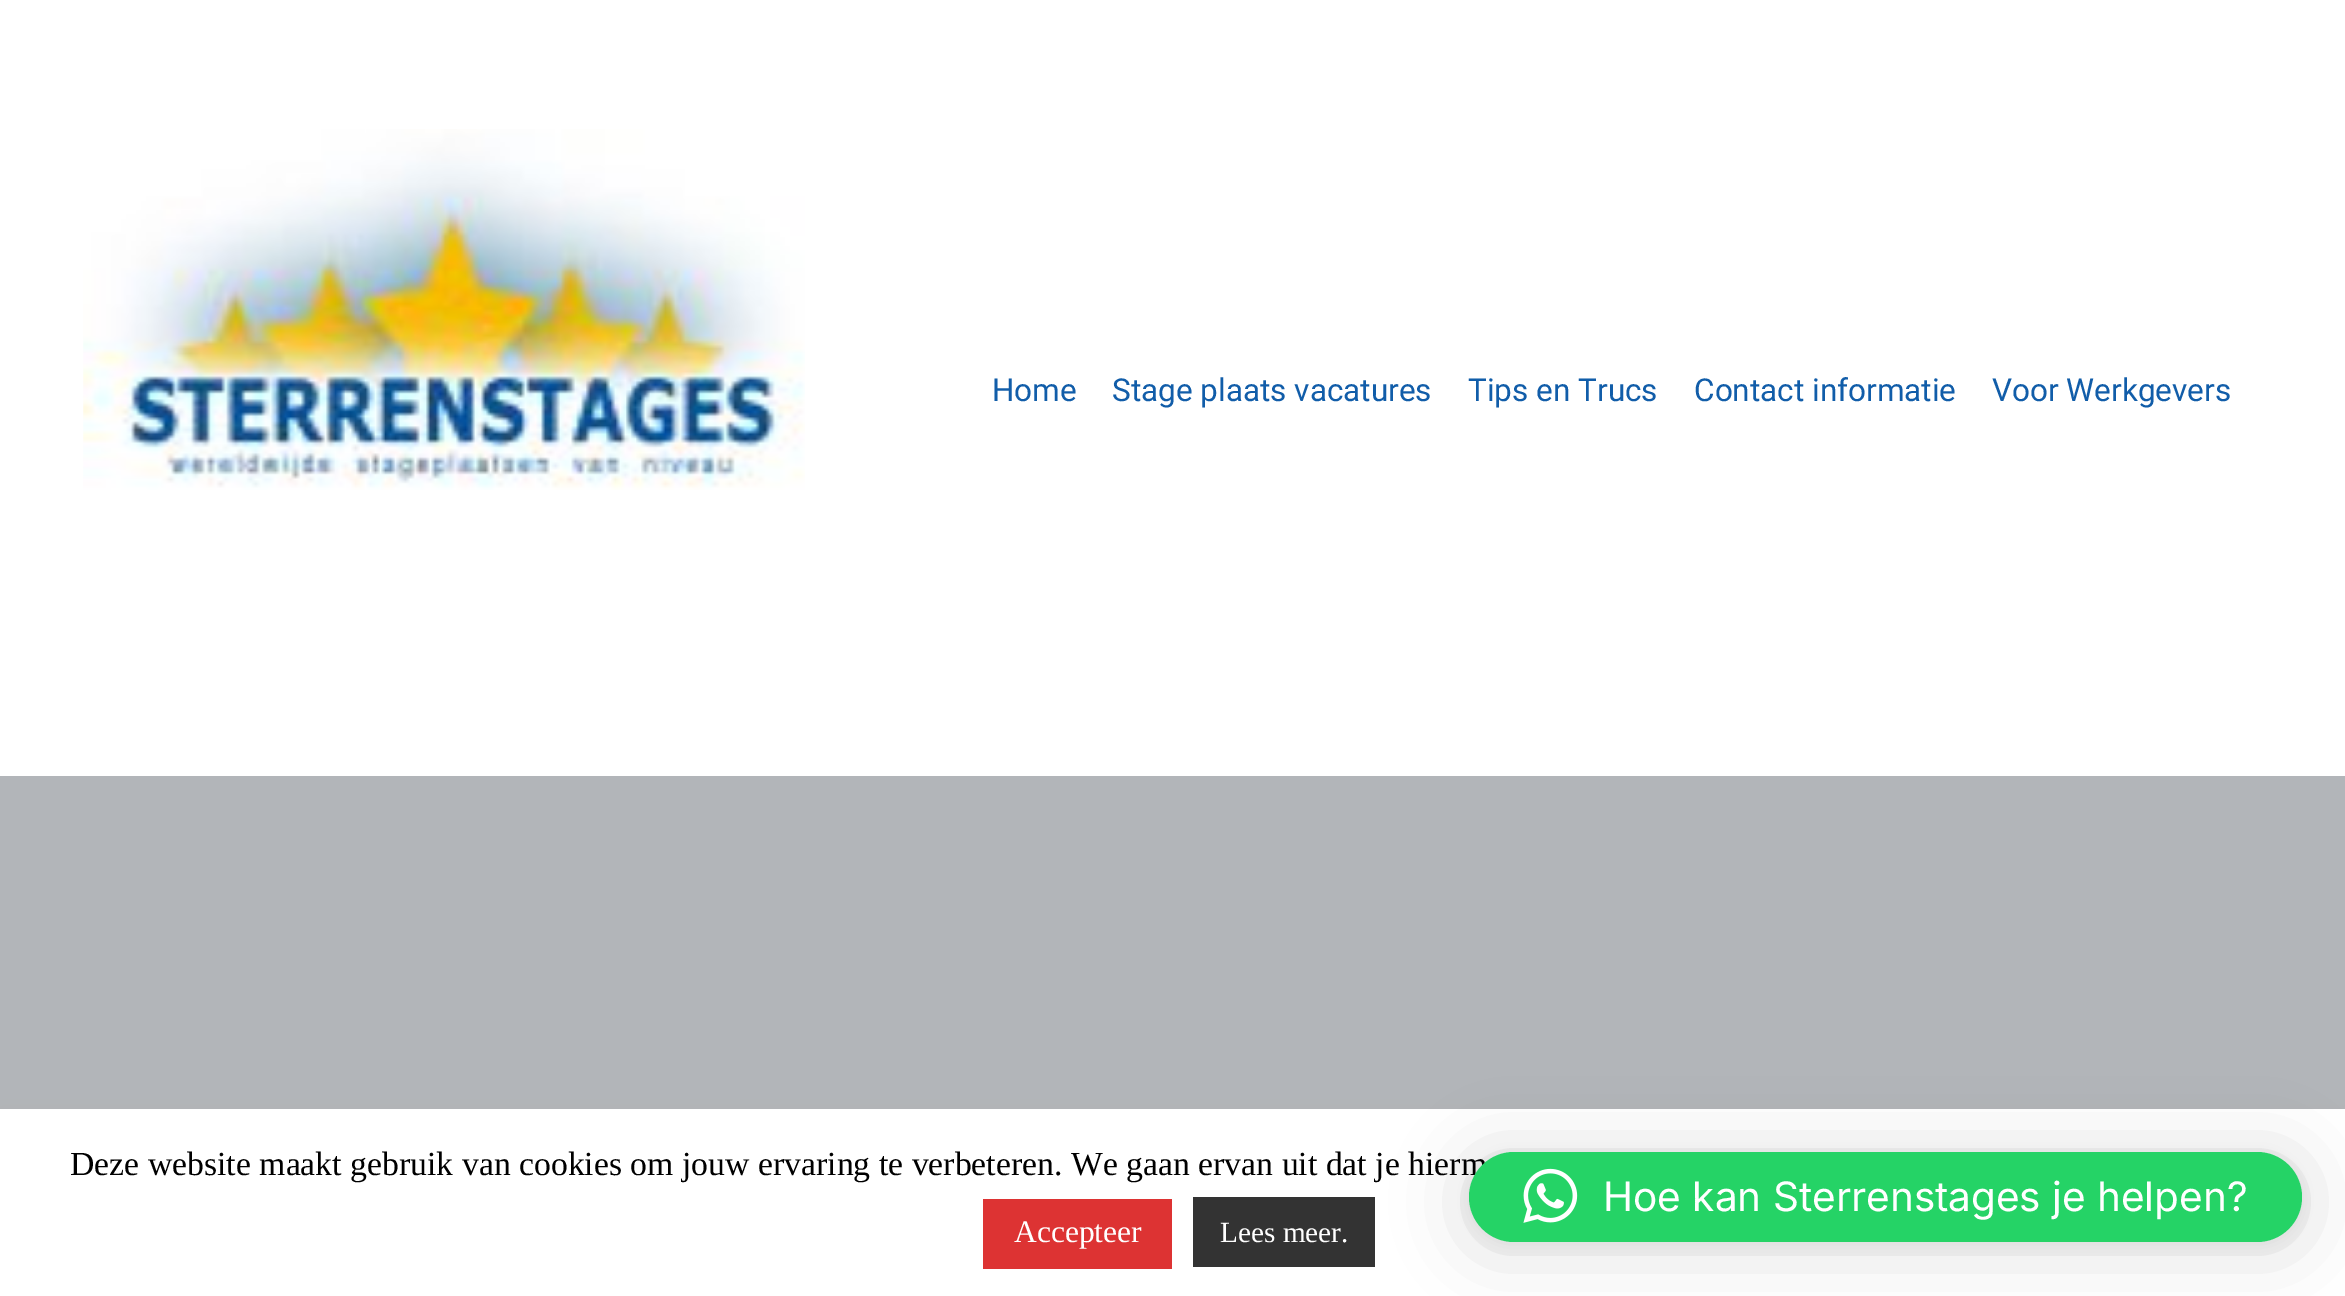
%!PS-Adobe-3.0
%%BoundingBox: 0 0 2345 1296
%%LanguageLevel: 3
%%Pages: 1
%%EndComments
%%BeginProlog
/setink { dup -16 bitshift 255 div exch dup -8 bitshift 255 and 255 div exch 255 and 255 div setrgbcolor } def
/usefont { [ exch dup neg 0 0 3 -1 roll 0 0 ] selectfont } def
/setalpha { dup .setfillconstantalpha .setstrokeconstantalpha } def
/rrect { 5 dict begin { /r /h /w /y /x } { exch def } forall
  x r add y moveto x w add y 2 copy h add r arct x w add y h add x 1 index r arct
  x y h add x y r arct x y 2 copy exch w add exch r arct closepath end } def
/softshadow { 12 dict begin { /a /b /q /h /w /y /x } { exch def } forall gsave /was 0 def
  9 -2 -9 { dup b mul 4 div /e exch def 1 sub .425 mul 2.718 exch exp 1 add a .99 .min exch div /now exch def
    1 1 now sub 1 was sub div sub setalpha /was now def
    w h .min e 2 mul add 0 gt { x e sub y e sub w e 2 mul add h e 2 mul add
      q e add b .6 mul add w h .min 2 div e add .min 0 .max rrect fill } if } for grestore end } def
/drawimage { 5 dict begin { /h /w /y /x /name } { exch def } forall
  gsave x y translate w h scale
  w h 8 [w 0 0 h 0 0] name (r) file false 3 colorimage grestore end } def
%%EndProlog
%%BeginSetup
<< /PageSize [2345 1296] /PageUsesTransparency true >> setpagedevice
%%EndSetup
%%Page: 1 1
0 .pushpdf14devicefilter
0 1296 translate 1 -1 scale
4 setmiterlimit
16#FFFFFF setink
0 0 2345 1296 rectfill
(img1.raw) 83 129 722 361 drawimage
/Roboto-Regular 31.5 usefont
16#115DA9 setink
[
    [(Home) 992 401]
    [(Stage plaats vacatures) 1112 401]
    [(Tips en Trucs) 1468 401]
    [(Contact informatie) 1694 401]
    [(Voor Werkgevers) 1992 401]
] { aload pop moveto show } forall
16#B2B5B9 setink
0 776 2345 333 rectfill
16#ACABAB setink
0 1107 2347 187 0 11 0.3 softshadow
16#FFFFFF setink
0 1109 2345 187 rectfill
/LiberationSerif-Regular 33.75 usefont
16#000000 setink
70 1175 moveto (Deze website maakt gebruik van cookies om jouw ervaring te verbeteren. We gaan ervan uit dat je hierm) show
16#DD3333 setink
983 1199 189 70 rectfill
/LiberationSerif-Regular 31.5 usefont
16#FFFFFF setink
1014 1242 moveto (Accepteer) show
16#333333 setink
1193 1197 182 70 rectfill
/LiberationSerif-Regular 29.25 usefont
16#FFFFFF setink
1220 1242 moveto (Lees meer.) show
16#000000 setink
1469 1157 833 90 45 36 0.16 softshadow
1469 1154 833 90 45 7 0.06 softshadow
16#25D366 setink
1469 1152 833 90 45 rrect fill
(img2.raw) 1523 1168 55 55 drawimage
/Inter-Regular 40.5 usefont
16#FFFFFF setink
1603 1211 moveto (Hoe kan Sterrenstages je helpen?) show
.poppdf14devicefilter showpage
%%EOF
